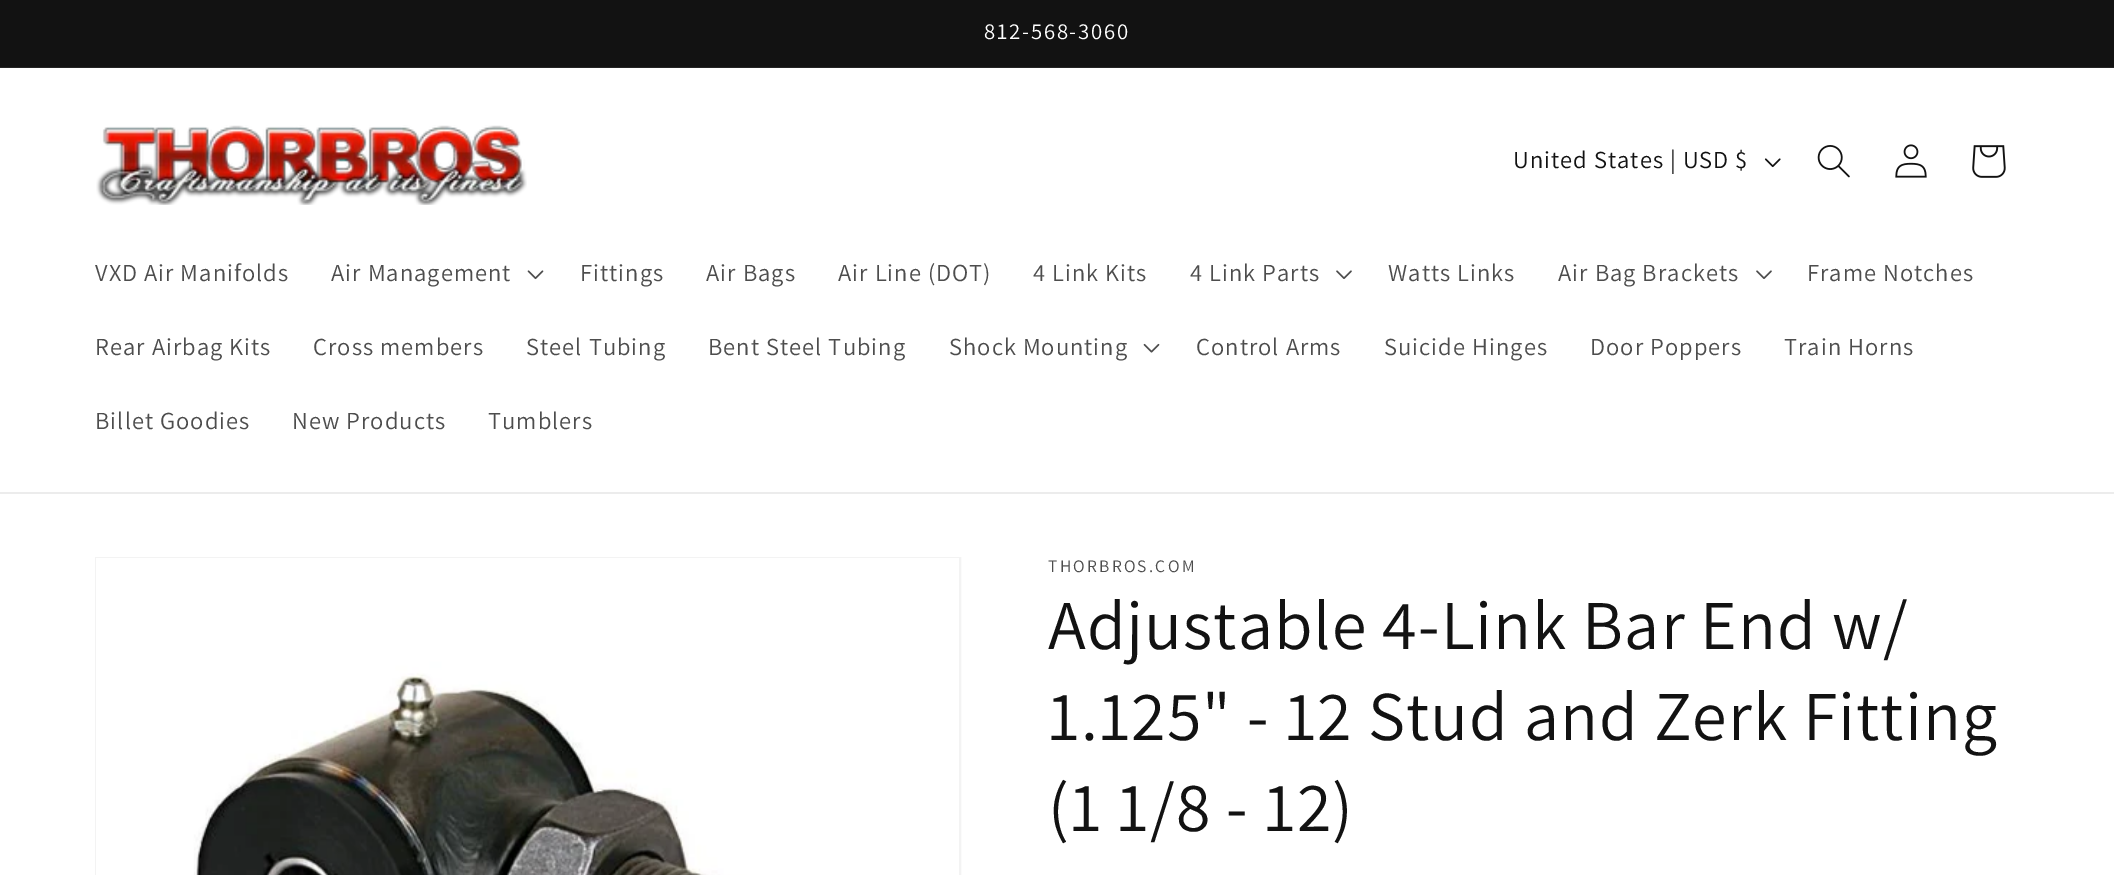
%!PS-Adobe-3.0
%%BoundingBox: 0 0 2114 875
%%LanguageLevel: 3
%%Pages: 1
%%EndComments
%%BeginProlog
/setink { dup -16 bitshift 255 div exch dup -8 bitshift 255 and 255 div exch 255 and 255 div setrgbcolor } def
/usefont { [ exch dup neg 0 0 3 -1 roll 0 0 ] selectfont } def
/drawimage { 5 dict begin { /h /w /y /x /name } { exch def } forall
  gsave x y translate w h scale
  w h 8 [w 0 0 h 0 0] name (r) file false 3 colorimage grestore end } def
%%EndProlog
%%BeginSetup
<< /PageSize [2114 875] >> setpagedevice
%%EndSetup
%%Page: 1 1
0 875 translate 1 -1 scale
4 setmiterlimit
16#FFFFFF setink
0 0 2114 875 rectfill
16#121212 setink
0 0 2114 67 rectfill
16#252525 setink
0 67 2114 1 rectfill
/Assistant-Regular 22.75 usefont
16#FFFFFF setink
984 39 moveto 1.75 0 (812-568-3060) ashow
16#ECECEC setink
0 492 2114 2 rectfill
(img1.raw) 96 125 431 80 drawimage
/Assistant-Regular 24.5 usefont
16#121212 setink
1513 168 moveto 1.05 0 (United States | USD $) ashow
(img2.raw) 1764 158 17 10 drawimage
(img3.raw) 1817 145 33 33 drawimage
(img4.raw) 1895 144 32 34 drawimage
(img5.raw) 1972 145 34 33 drawimage
16#4D4D4D setink
95 281 moveto 1.05 0 (VXD Air Manifolds) ashow
331 281 moveto 1.05 0 (Air Management) ashow
(img6.raw) 527 270 17 10 drawimage
580 281 moveto 1.05 0 (Fittings) ashow
706 281 moveto 1.05 0 (Air Bags) ashow
838 281 moveto 1.05 0 (Air Line \(DOT\)) ashow
1033 281 moveto 1.05 0 (4 Link Kits) ashow
1190 281 moveto 1.05 0 (4 Link Parts) ashow
(img7.raw) 1336 270 16 9 drawimage
1388 281 moveto 1.05 0 (Watts Links) ashow
1558 281 moveto 1.05 0 (Air Bag Brackets) ashow
(img7.raw) 1756 270 16 9 drawimage
1807 281 moveto 1.05 0 (Frame Notches) ashow
95 355 moveto 1.05 0 (Rear Airbag Kits) ashow
313 355 moveto 1.05 0 (Cross members) ashow
526 355 moveto 1.05 0 (Steel Tubing) ashow
708 355 moveto 1.05 0 (Bent Steel Tubing) ashow
949 355 moveto 1.05 0 (Shock Mounting) ashow
(img8.raw) 1143 343 17 10 drawimage
1196 355 moveto 1.05 0 (Control Arms) ashow
1384 355 moveto 1.05 0 (Suicide Hinges) ashow
1590 355 moveto 1.05 0 (Door Poppers) ashow
1784 355 moveto 1.05 0 (Train Horns) ashow
95 429 moveto 1.05 0 (Billet Goodies) ashow
292 429 moveto 1.05 0 (New Products) ashow
488 429 moveto 1.05 0 (Tumblers) ashow
16#F3F3F3 setink
2 setlinewidth
96 558 864 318 rectstroke
(img9.raw) 96 558 863 317 drawimage
/Assistant-Regular 17.5 usefont
16#4D4D4D setink
1048 572 moveto 2.25 0 (THORBROS.COM) ashow
/Assistant-Regular 70 usefont
16#121212 setink
1048 649 moveto 1.05 0 (Adjustable 4-Link Bar End w/) ashow
1048 740 moveto 1.05 0 (1.125" - 12 Stud and Zerk Fitting) ashow
1048 831 moveto 1.05 0 (\(1 1/8 - 12\)) ashow
showpage
%%EOF
